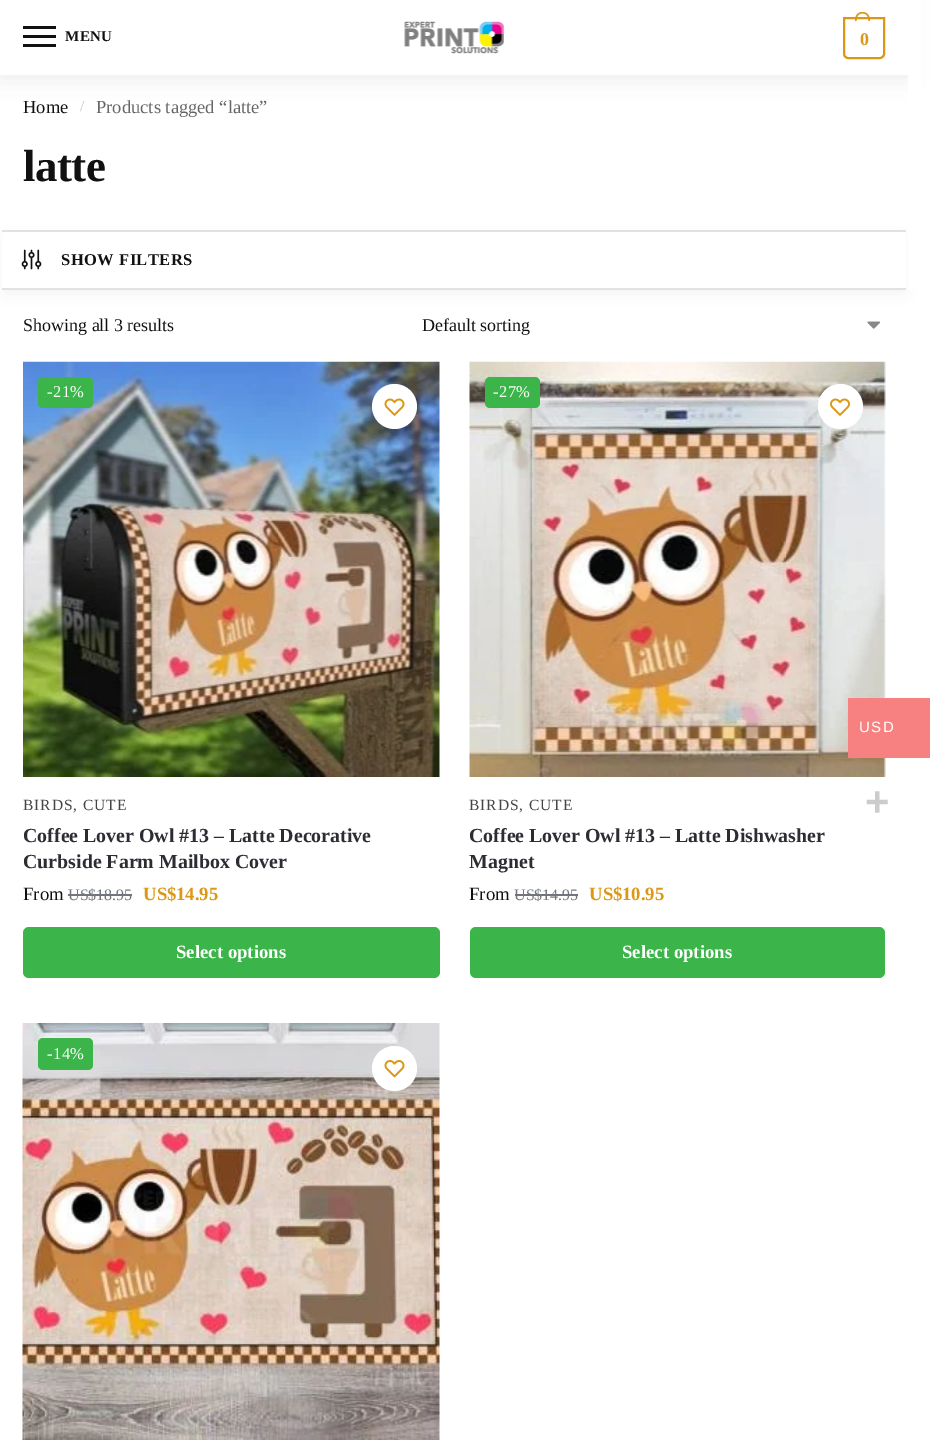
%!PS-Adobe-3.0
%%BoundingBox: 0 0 930 1449
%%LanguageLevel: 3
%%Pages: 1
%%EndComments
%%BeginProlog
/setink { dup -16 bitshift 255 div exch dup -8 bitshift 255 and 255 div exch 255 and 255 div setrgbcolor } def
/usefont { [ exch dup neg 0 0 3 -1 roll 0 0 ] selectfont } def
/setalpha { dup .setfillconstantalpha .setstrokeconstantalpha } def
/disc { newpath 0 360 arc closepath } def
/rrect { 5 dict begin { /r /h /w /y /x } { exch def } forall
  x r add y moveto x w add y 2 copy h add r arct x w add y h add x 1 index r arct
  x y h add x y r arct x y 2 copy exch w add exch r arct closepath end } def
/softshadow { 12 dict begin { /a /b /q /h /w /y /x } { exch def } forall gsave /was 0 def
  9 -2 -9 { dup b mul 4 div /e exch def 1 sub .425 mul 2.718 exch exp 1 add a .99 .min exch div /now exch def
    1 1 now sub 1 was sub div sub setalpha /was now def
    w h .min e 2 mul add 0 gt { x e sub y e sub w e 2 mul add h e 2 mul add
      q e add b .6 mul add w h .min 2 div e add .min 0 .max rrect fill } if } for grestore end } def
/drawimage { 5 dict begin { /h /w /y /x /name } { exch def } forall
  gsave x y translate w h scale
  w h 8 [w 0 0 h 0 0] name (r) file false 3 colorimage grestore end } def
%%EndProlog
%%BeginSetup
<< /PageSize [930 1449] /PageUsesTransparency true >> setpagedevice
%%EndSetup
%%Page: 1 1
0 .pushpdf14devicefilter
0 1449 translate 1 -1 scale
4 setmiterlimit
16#FFFFFF setink
0 0 930 1449 rectfill
16#000000 setink
0 2 908 75 0 11 0.08 softshadow
[
    [0 0 908 75 16#FFFFFF]
    [23 26 33 3 16#111111]
    [23 35 33 3 16#111111]
] { aload pop setink rectfill } forall
/LiberationSerif-Bold 15 usefont
65 41 moveto 0.5 0 (MENU) ashow
23 44 33 3 rectfill
(img1.raw) 404 21 100 33 drawimage
16#DC9814 setink
2 setlinewidth
844 18 moveto 884 18 lineto 884 54 lineto 884 56 882 58 880 58 curveto 848 58 lineto 846 58 844 56 844 54 curveto closepath stroke
862.5 12 moveto 868 12 870 16.5 870 21 curveto 855 21 lineto 855 16.5 857 12 862.5 12 curveto closepath 862.5 13.5 moveto 867 13.5 868.5 17 868.5 21 curveto 856.5 21 lineto 856.5 17 858 13.5 862.5 13.5 curveto closepath eofill
/LiberationSerif-Bold 18 usefont
860 45 moveto -1 0 (0) ashow
16#000000 setink
5 239 898 54 0 9 0.06 softshadow
16#FFFFFF setink
908 0 13 290 rectfill
/LiberationSerif-Regular 18.5 usefont
16#111111 setink
23 113 moveto (Home) show
/LiberationSerif-Regular 15 usefont
16#C2C2C2 setink
80 111 moveto (/) show
/LiberationSerif-Regular 18.5 usefont
16#666666 setink
96 113 moveto (Products tagged “latte”) show
/LiberationSerif-Bold 45 usefont
16#111111 setink
23 181 moveto -0.5 0 (latte) ashow
[
    [2 232 904 56 16#FFFFFF]
    [2 230 904 2 16#E2E2E2]
    [2 288 904 2 16#E2E2E2]
] { aload pop setink rectfill } forall
(img2.raw) 21 249 21 21 drawimage
/LiberationSerif-Bold 16.5 usefont
16#111111 setink
61 265 moveto 0.5 0 (SHOW FILTERS) ashow
/LiberationSerif-Regular 18 usefont
23 331 moveto (Showing all 3 results) show
(img3.raw) 867 321 14 8 drawimage
422 331 moveto (Default sorting) show
(img4.raw) 23 361 417 416 drawimage
16#FFFFFF setink
394.5 406.5 22.5 disc fill
(img5.raw) 384 398 21 18 drawimage
16#3BB54A setink
38 377 55 31 5 rrect fill
/LiberationSerif-Regular 16.5 usefont
16#FFFFFF setink
47 397 moveto 0.5 0 (-21%) ashow
/LiberationSerif-Regular 15.5 usefont
16#444444 setink
23 810 moveto 1 0 (BIRDS) ashow
73 810 moveto 1 0 (, CUTE) ashow
/LiberationSerif-Bold 19.9 usefont
16#2C2D33 setink
23 842 moveto (Coffee Lover Owl #13 – Latte Decorative) show
23 868 moveto (Curbside Farm Mailbox Cover) show
/LiberationSerif-Regular 18.75 usefont
16#111111 setink
23 900 moveto (From) show
/LiberationSerif-Regular 16 usefont
16#72767C setink
68 900 moveto (US$) show
68 894 28 2 rectfill
96 900 moveto (18.95) show
96 894 36 2 rectfill
/LiberationSerif-Bold 18.75 usefont
16#DC9814 setink
143 900 moveto (US$) show
176 900 moveto (14.95) show
16#3BB54A setink
23 927 417 51 6 rrect fill
16#FFFFFF setink
176 958 moveto (Select options) show
(img6.raw) 469 361 417 416 drawimage
840.5 406.5 22.5 disc fill
(img7.raw) 830 398 20 18 drawimage
16#3BB54A setink
485 377 55 31 5 rrect fill
/LiberationSerif-Regular 16.5 usefont
16#FFFFFF setink
493 397 moveto 0.5 0 (-27%) ashow
/LiberationSerif-Regular 15.5 usefont
16#444444 setink
469 810 moveto 1 0 (BIRDS) ashow
519 810 moveto 1 0 (, CUTE) ashow
/LiberationSerif-Bold 19.9 usefont
16#2C2D33 setink
469 842 moveto (Coffee Lover Owl #13 – Latte Dishwasher) show
469 868 moveto (Magnet) show
/LiberationSerif-Regular 18.75 usefont
16#111111 setink
469 900 moveto (From) show
/LiberationSerif-Regular 16 usefont
16#72767C setink
514 900 moveto (US$) show
542 900 moveto (14.95) show
543 894 35 2 rectfill
515 894 28 2 rectfill
/LiberationSerif-Bold 18.75 usefont
16#DC9814 setink
589 900 moveto (US$) show
622 900 moveto (10.95) show
16#3BB54A setink
470 927 415 51 6 rrect fill
16#FFFFFF setink
622 958 moveto (Select options) show
(img8.raw) 22 1023 418 417 drawimage
394.5 1068.5 22.5 disc fill
(img9.raw) 384 1060 21 18 drawimage
16#3BB54A setink
38 1038 55 32 5 rrect fill
/LiberationSerif-Regular 16.5 usefont
16#FFFFFF setink
47 1059 moveto 0.5 0 (-14%) ashow
16#F78080 setink
848 698 82 60 rectfill
/LiberationSans-Regular 15 usefont
16#FFFFFF setink
859 732 moveto 1.5 0 (USD) ashow
/LiberationSans-Bold 42 usefont
16#CCCCCC setink
865 816 moveto (+) show
.poppdf14devicefilter showpage
%%EOF
